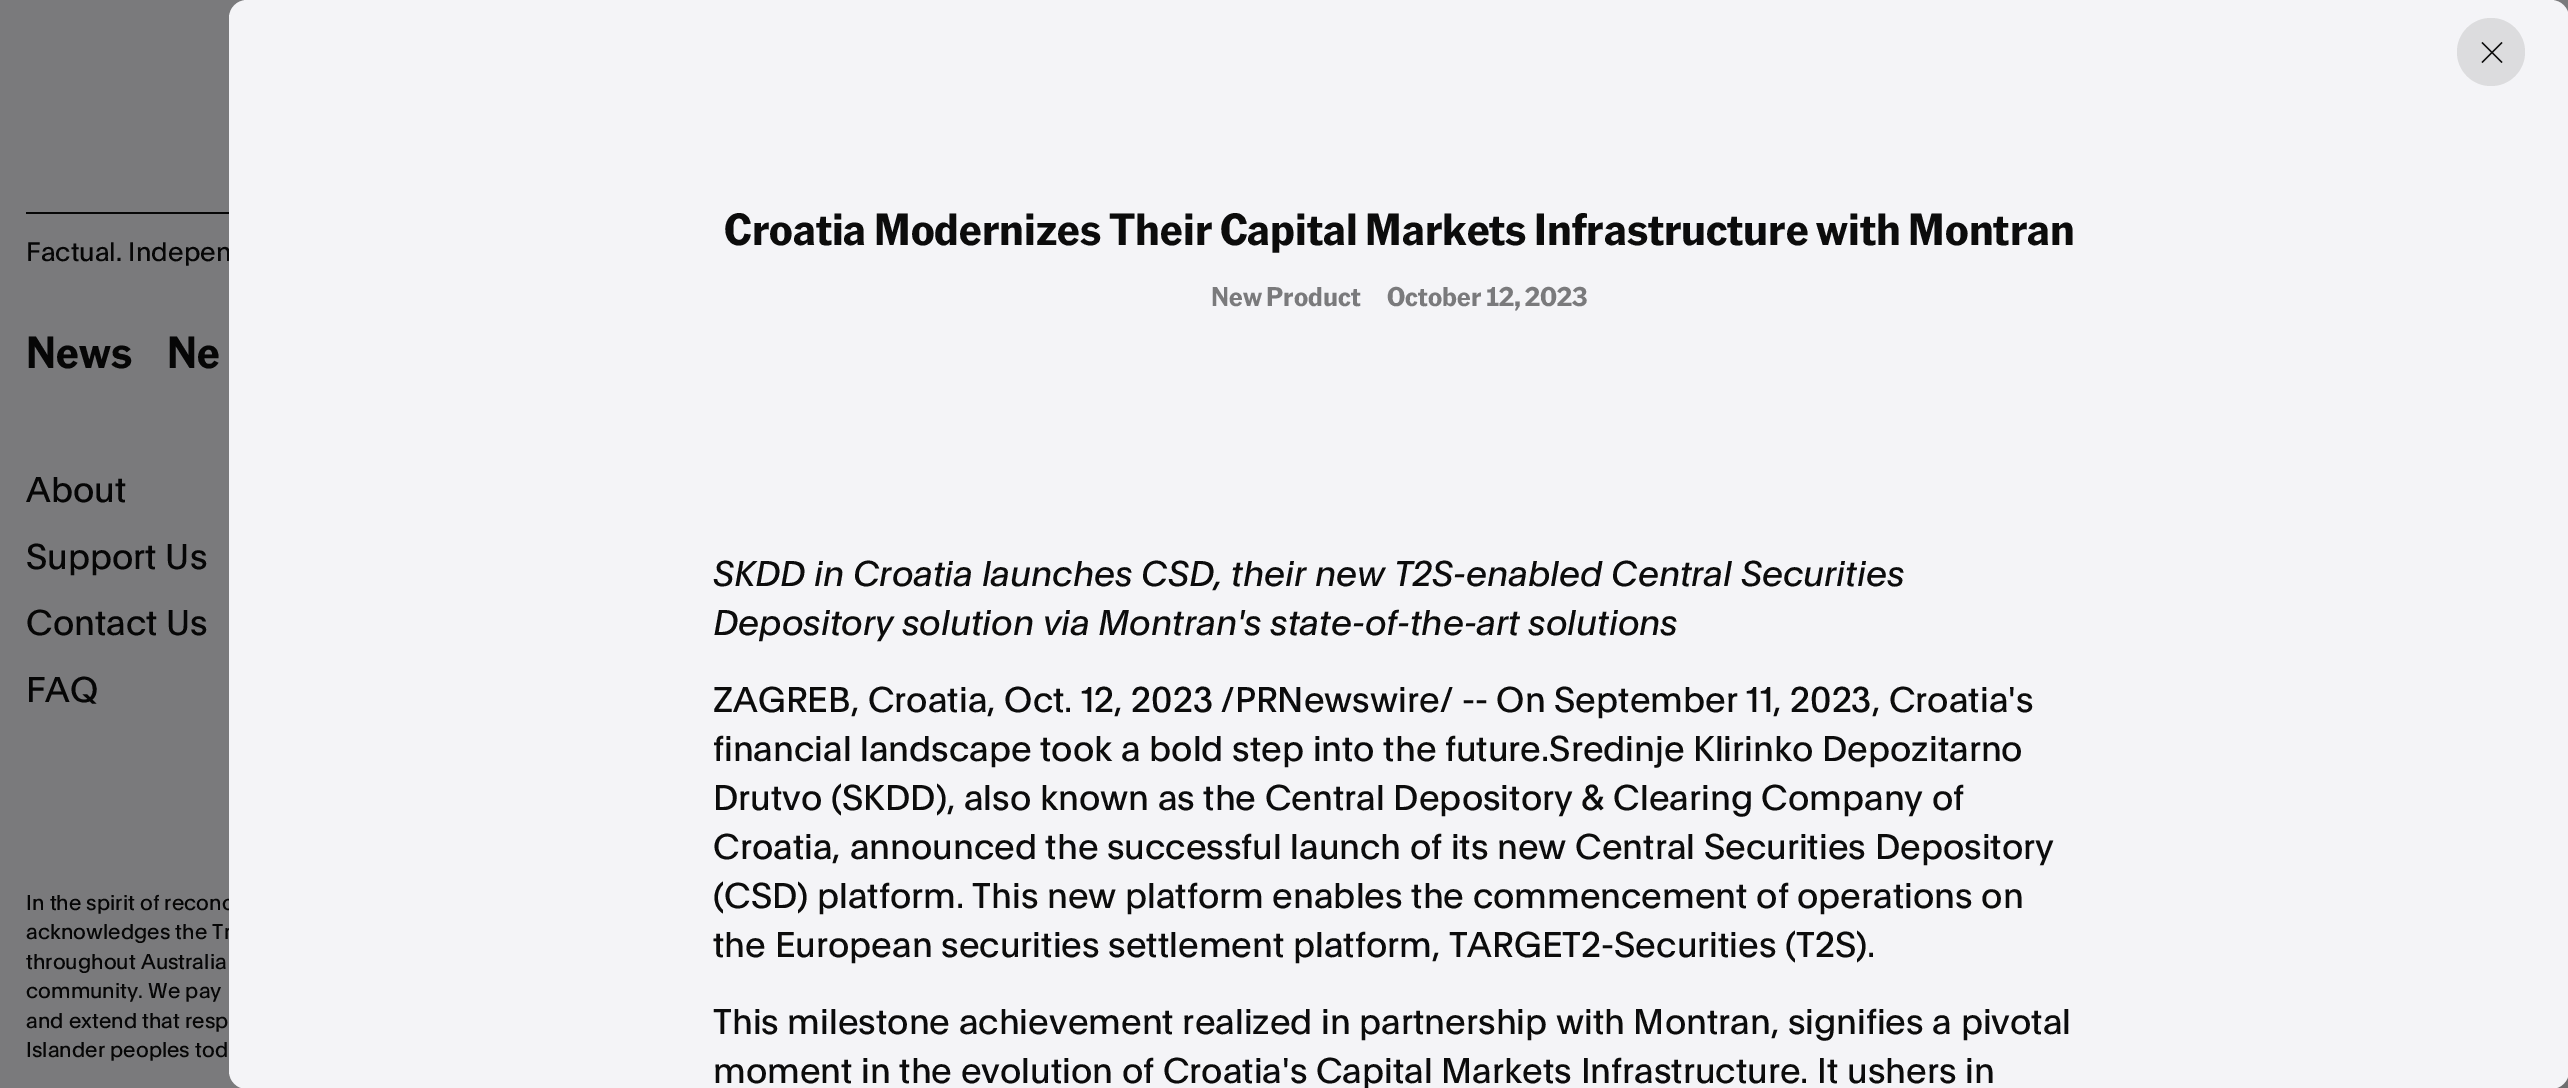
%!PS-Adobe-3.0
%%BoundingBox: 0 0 2568 1088
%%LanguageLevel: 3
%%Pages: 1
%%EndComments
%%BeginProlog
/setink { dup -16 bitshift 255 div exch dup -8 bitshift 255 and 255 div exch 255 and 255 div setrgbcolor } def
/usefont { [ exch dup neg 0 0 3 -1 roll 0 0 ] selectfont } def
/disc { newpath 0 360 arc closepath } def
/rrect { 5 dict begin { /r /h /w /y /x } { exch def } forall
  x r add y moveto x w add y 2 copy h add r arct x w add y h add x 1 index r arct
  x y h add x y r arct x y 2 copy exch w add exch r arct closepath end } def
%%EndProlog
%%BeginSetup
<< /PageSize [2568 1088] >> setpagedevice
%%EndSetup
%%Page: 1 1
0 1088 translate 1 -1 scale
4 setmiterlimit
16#7A7A7C setink
0 0 2568 1088 rectfill
16#060606 setink
26 212 203 2 rectfill
/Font-Regular 26.25 usefont
26 261 moveto (Factual. Indepen) show
/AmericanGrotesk-Bold 43.75 usefont
26 368 moveto (News) show
167 368 moveto (Ne) show
/Font-Regular 35 usefont
[
    [(About) 26 502]
    [(Support Us) 26 569]
    [(Contact Us) 26 635]
    [(FAQ) 26 702]
] { aload pop moveto show } forall
/Font-Regular 21 usefont
[
    [(In the spirit of reconc) 26 910]
    [(acknowledges the Tr) 26 939]
    [(throughout Australia) 26 969]
    [(community. We pay) 26 998]
    [(and extend that resp) 26 1028]
    [(Islander peoples tod) 26 1057]
] { aload pop moveto show } forall
16#6E6E6F setink
2557 1077 11 11 rectfill
16#F4F4F7 setink
229 0 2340 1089 18 rrect fill
16#DCDCDE setink
2491 52 34 disc fill
16#0C0C0C setink
1.4 setlinewidth
1 setlinejoin
2502 42.5 moveto 2482 62.5 lineto 2502 62.5 moveto 2482 42.5 lineto stroke
/AmericanGrotesk-Bold 43.75 usefont
724 245 moveto (Croatia Modernizes Their Capital Markets Infrastructure with Montran) show
/AmericanGrotesk-Bold 26.25 usefont
16#7A7A7C setink
1211 306 moveto (New Product) show
1387 306 moveto (October 12, 2023) show
/Font-Italic 35 usefont
16#0C0C0C setink
713 586 moveto (SKDD in Croatia launches CSD, their new T2S-enabled Central Securities) show
713 635 moveto (Depository solution via Montran's state-of-the-art solutions) show
/Font-Regular 35 usefont
[
    [(ZAGREB, Croatia, Oct. 12, 2023 /PRNewswire/ -- On September 11, 2023, Croatia's) 713 712]
    [(financial landscape took a bold step into the future.Sredinje Klirinko Depozitarno) 713 761]
    [(Drutvo \(SKDD\), also known as the Central Depository & Clearing Company of) 713 810]
    [(Croatia, announced the successful launch of its new Central Securities Depository) 713 859]
    [(\(CSD\) platform. This new platform enables the commencement of operations on) 713 908]
    [(the European securities settlement platform, TARGET2-Securities \(T2S\).) 713 957]
    [(This milestone achievement realized in partnership with Montran, signifies a pivotal) 713 1034]
    [(moment in the evolution of Croatia's Capital Markets Infrastructure. It ushers in) 713 1083]
] { aload pop moveto show } forall
showpage
%%EOF
